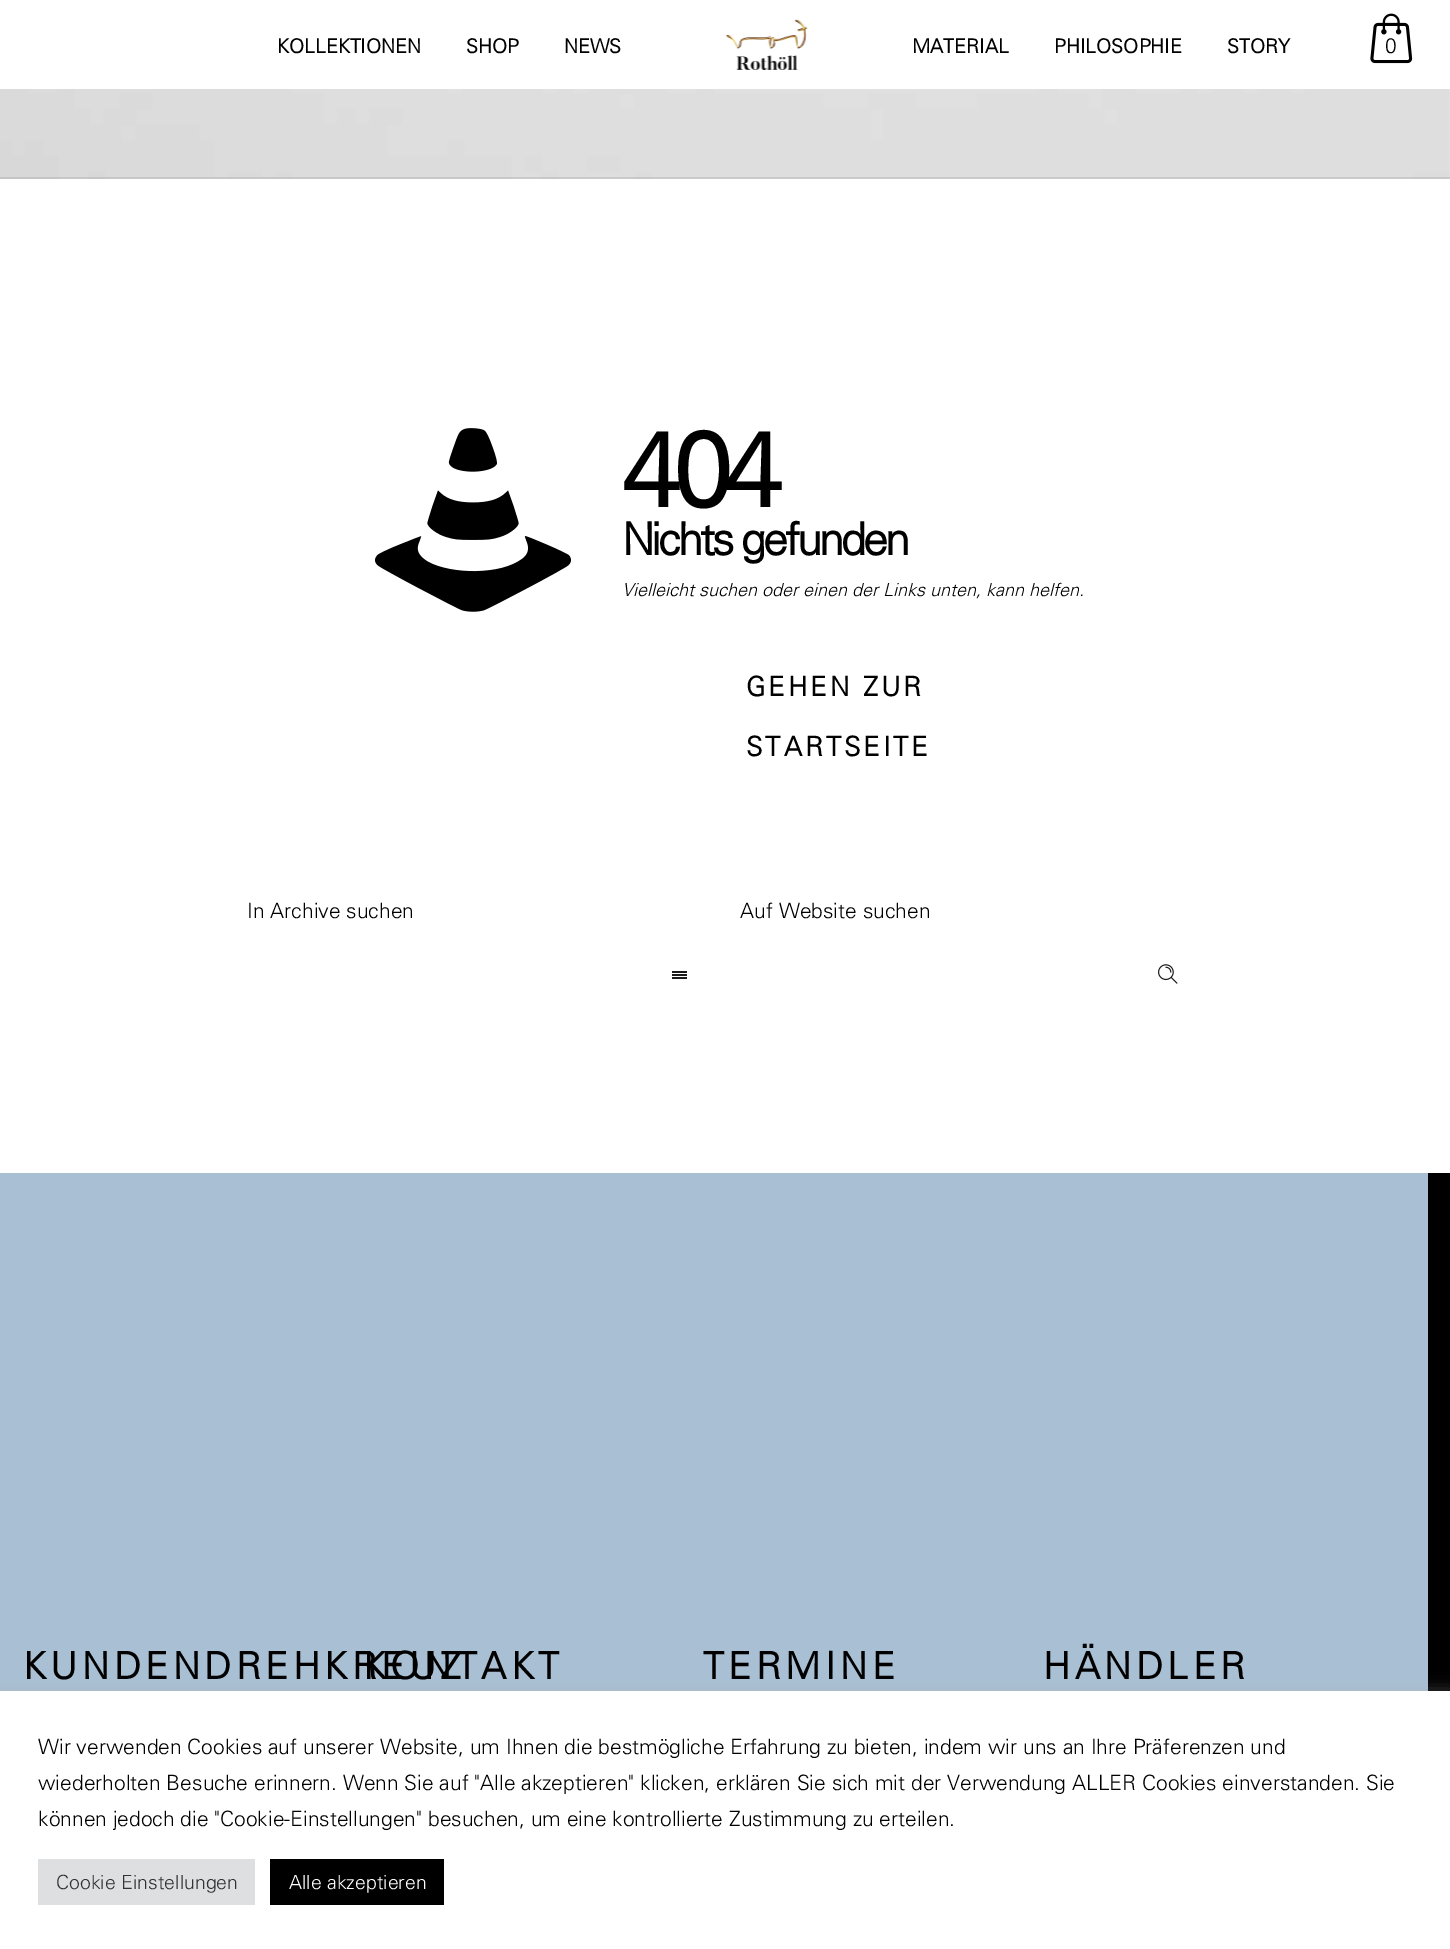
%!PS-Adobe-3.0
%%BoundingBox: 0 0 1450 1949
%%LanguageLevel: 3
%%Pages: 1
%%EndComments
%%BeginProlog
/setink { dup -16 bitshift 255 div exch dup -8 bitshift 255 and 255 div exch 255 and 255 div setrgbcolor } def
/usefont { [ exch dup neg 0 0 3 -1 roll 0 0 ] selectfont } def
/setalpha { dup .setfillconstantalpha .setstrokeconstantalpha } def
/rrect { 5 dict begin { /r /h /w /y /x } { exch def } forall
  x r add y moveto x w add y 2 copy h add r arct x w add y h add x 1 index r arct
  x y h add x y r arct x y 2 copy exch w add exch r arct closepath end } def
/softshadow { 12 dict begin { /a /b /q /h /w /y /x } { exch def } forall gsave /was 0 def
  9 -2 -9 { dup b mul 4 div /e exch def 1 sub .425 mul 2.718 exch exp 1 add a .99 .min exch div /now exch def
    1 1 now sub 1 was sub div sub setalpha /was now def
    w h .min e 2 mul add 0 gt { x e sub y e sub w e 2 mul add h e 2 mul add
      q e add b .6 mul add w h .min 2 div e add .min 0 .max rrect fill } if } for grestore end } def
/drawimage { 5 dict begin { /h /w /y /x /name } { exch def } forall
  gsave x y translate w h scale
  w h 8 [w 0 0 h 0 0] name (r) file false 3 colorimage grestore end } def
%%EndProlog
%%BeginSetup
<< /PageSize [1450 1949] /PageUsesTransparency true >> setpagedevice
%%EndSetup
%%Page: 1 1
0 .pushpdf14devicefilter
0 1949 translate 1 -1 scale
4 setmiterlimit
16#FFFFFF setink
0 0 1450 1949 rectfill
/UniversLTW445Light-Bold 19.5 usefont
16#000000 setink
[
    [(KOLLEKTIONEN) 277 53]
    [(SHOP) 466 53]
    [(NEWS) 564 53]
] { aload pop moveto show } forall
(img1.raw) 725 19 83 51 drawimage
[
    [(MATERIAL) 912 53]
    [(PHILOSOPHIE) 1054 53]
    [(STORY) 1227 53]
] { aload pop moveto show } forall
(img2.raw) 1370 13 43 51 drawimage
/UniversLTW445Light-Light 21 usefont
1385 53 moveto (0) show
(img3.raw) 0 89 1450 90 drawimage
0.1 setalpha
16#1B1B1B setink
0 177 1450 2 rectfill
1 setalpha
(img4.raw) 375 428 196 184 drawimage
/UniversLTW445Light-Bold 105 usefont
16#000000 setink
622 507 moveto -7.5 0 (404) ashow
/UniversLTW445Light-Bold 45 usefont
622 555 moveto -3 0 (Nichts gefunden) ashow
/UniversLTW445Light-LightItalic 18 usefont
622 596 moveto (Vielleicht suchen oder einen der Links unten, kann helfen.) show
/UniversLTW445Light-Bold 27 usefont
746 696 moveto 3 0 (GEHEN ZUR) ashow
746 756 moveto 3 0 (STARTSEITE) ashow
/UniversLTW445Light-Light 21 usefont
247 918 moveto (In Archive suchen) show
[
    [672 977 15 2 16#1B1B1B]
    [672 971 15 2 16#1B1B1B]
    [672 974 15 2 16#1B1B1B]
] { aload pop setink rectfill } forall
16#000000 setink
740 918 moveto (Auf Website suchen) show
(img5.raw) 1158 964 20 20 drawimage
1428 1173 22 518 rectfill
16#A9BFD3 setink
0 1173 1428 518 rectfill
/UniversLTW445Light-Bold 37.5 usefont
16#000000 setink
23 1679 moveto 4.5 0 (KUNDENDREHKREUZ) ashow
363 1679 moveto 4.5 0 (KONTAKT) ashow
703 1679 moveto 4.5 0 (TERMINE) ashow
1043 1679 moveto 4.5 0 (HÄNDLER) ashow
16#ACABAB setink
0 1689 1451 260 0 7.5 0.3 softshadow
16#FFFFFF setink
0 1691 1450 258 rectfill
/UniversLTW445Light-Light 21 usefont
16#000000 setink
[
    [(Wir verwenden Cookies auf unserer Website, um Ihnen die bestmögliche Erfahrung zu bieten, indem wir uns an Ihre Präferenzen und) 38 1754]
    [(wiederholten Besuche erinnern. Wenn Sie auf "Alle akzeptieren" klicken, erklären Sie sich mit der Verwendung ALLER Cookies einverstanden. Sie) 38 1790]
    [(können jedoch die "Cookie-Einstellungen" besuchen, um eine kontrollierte Zustimmung zu erteilen.) 38 1826]
] { aload pop moveto show } forall
16#DEDFE0 setink
38 1859 217 46 rectfill
/UniversLTW445Light-Light 19.5 usefont
16#333333 setink
56 1889 moveto (Cookie Einstellungen) show
16#000000 setink
270 1859 174 46 rectfill
16#FFFFFF setink
289 1889 moveto (Alle akzeptieren) show
.poppdf14devicefilter showpage
%%EOF
